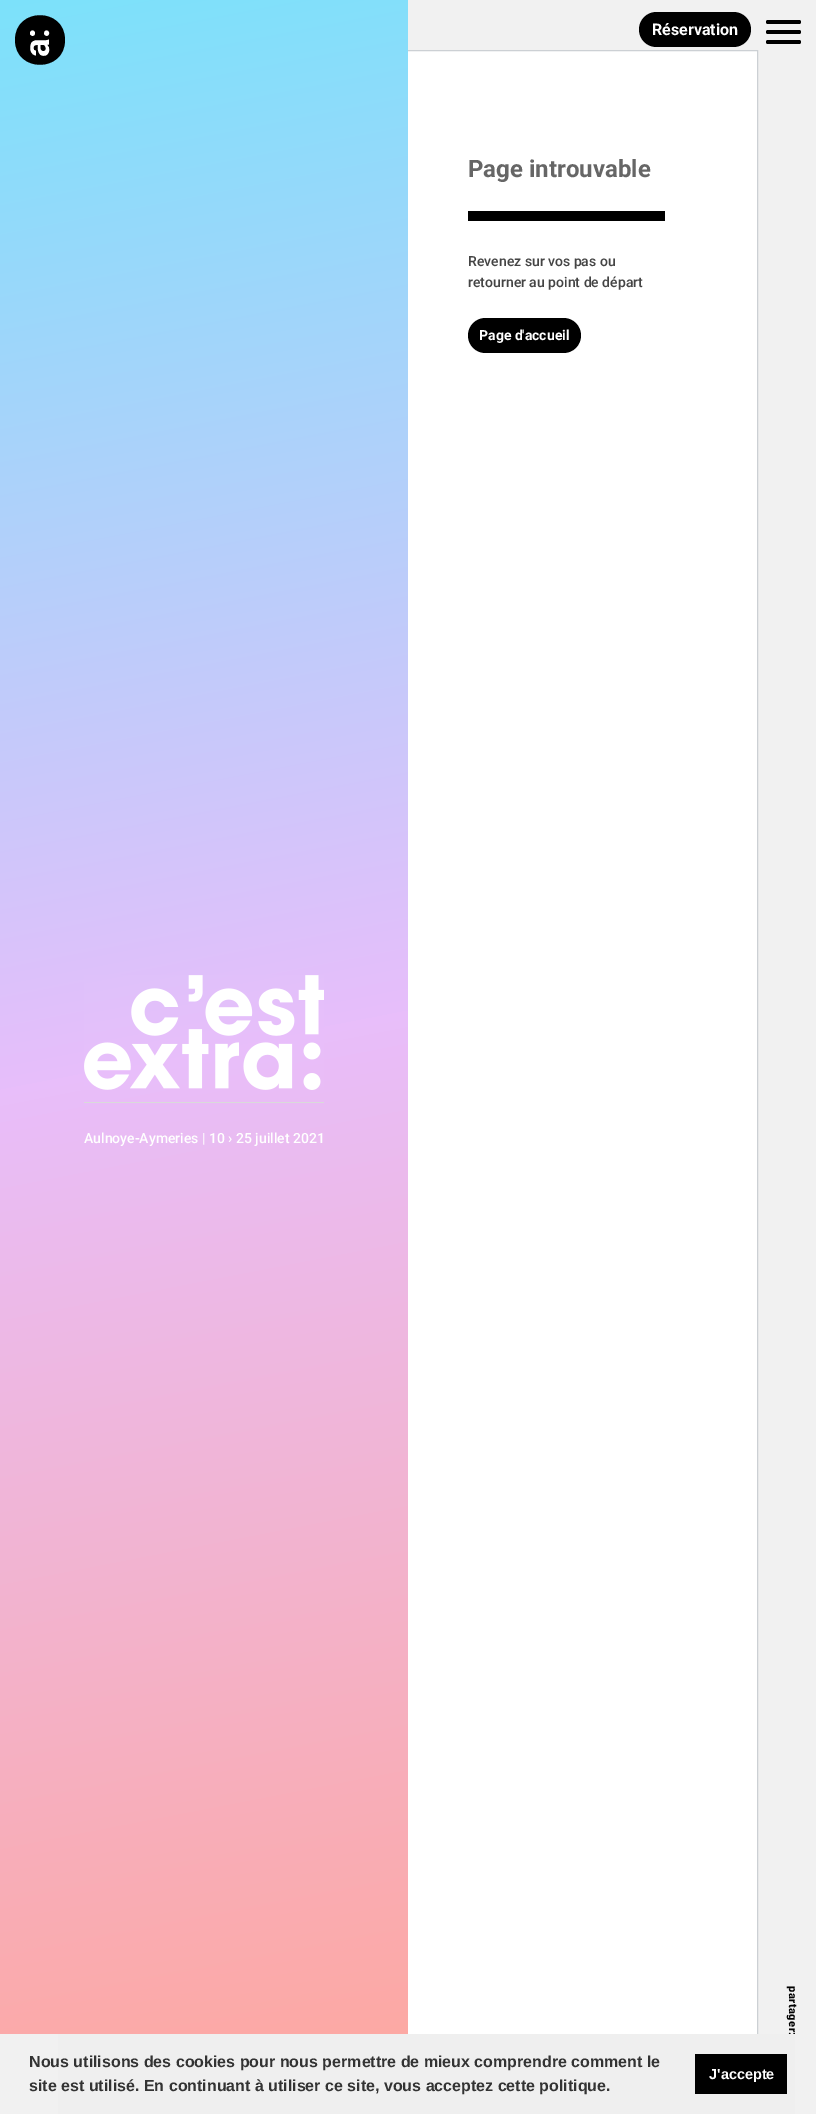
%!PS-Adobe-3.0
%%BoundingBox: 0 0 816 2114
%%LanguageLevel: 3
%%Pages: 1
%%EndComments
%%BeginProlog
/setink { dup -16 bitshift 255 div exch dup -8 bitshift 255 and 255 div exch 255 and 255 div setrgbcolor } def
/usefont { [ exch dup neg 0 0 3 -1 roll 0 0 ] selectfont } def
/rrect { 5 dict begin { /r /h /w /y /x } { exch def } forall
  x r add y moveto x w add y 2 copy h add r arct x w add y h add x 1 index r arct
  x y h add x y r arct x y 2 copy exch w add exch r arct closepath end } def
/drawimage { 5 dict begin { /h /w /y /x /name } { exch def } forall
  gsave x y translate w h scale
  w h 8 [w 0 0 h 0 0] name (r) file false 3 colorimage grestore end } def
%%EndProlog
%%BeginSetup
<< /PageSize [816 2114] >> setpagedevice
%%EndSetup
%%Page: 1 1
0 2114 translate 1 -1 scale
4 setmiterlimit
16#F1F1F1 setink
0 0 816 2114 rectfill
16#FFFFFF setink
408 51 349 1983 rectfill
16#CCD0D4 setink
58.5 50.5 699 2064 rectstroke
gsave 0 0 moveto 408 0 lineto 408 2034 lineto 0 2034 lineto closepath clip newpath
<< /ShadingType 2 /ColorSpace /DeviceRGB /Coords [-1.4 0.3 409 2114] /Extend [true true] /Function << /FunctionType 3 /Domain [0 1] /Functions [<< /FunctionType 2 /Domain [0 1] /C0 [0.486 0.886 0.98] /C1 [0.91 0.745 0.98] /N 1 >> << /FunctionType 2 /Domain [0 1] /C0 [0.91 0.745 0.98] /C1 [1 0.655 0.616] /N 1 >>] /Bounds [0.5] /Encode [0 1 0 1] >> >> shfill grestore
16#000000 setink
15 40 moveto 15 7 65 7 65 40 curveto 65 73 15 73 15 40 curveto closepath fill
/Roboto-Bold 35 usefont
16#FFFFFF setink
gsave 49 57 translate -90 rotate 0 0 moveto (a:) show grestore
16#000000 setink
639 12 112 35 17.5 rrect fill
/Roboto-Bold 16 usefont
16#FFFFFF setink
652 35 moveto (Réservation) show
16#000000 setink
766 20 35 4 2 rrect fill
766 30 35 4 2 rrect fill
766 40 35 4 2 rrect fill
468 211 197 10 rectfill
/Roboto-Bold 24 usefont
16#666666 setink
468 177 moveto (Page introuvable) show
/Roboto-Medium 14 usefont
16#444444 setink
468 266 moveto (Revenez sur vos pas ou) show
468 287 moveto (retourner au point de départ) show
16#000000 setink
468 318 113 35 17.5 rrect fill
/Roboto-Bold 14 usefont
16#FFFFFF setink
479 340 moveto (Page d'accueil) show
16#DADADA setink
84 1102 240 1 rectfill
(img1.raw) 84 975 240 115 drawimage
/Roboto-Medium 14 usefont
16#FFFFFF setink
84 1143 moveto (Aulnoye-Aymeries | 10 › 25 juillet 2021) show
/Roboto-ExtraBold 11 usefont
16#000000 setink
gsave 789 1986 translate 90 rotate 0 0 moveto 0.5 0 (partager:) ashow grestore
16#EFEFEF setink
58 2034 737 80 rectfill
/LiberationSans-Bold 16 usefont
16#333333 setink
29 2067 moveto (Nous utilisons des cookies pour nous permettre de mieux comprendre comment le) show
29 2091 moveto (site est utilisé. En continuant à utiliser ce site, vous acceptez cette politique.) show
16#000000 setink
695 2054 92 40 rectfill
/LiberationSans-Bold 14.5 usefont
16#FFFFFF setink
709 2079 moveto (J'accepte) show
showpage
%%EOF
